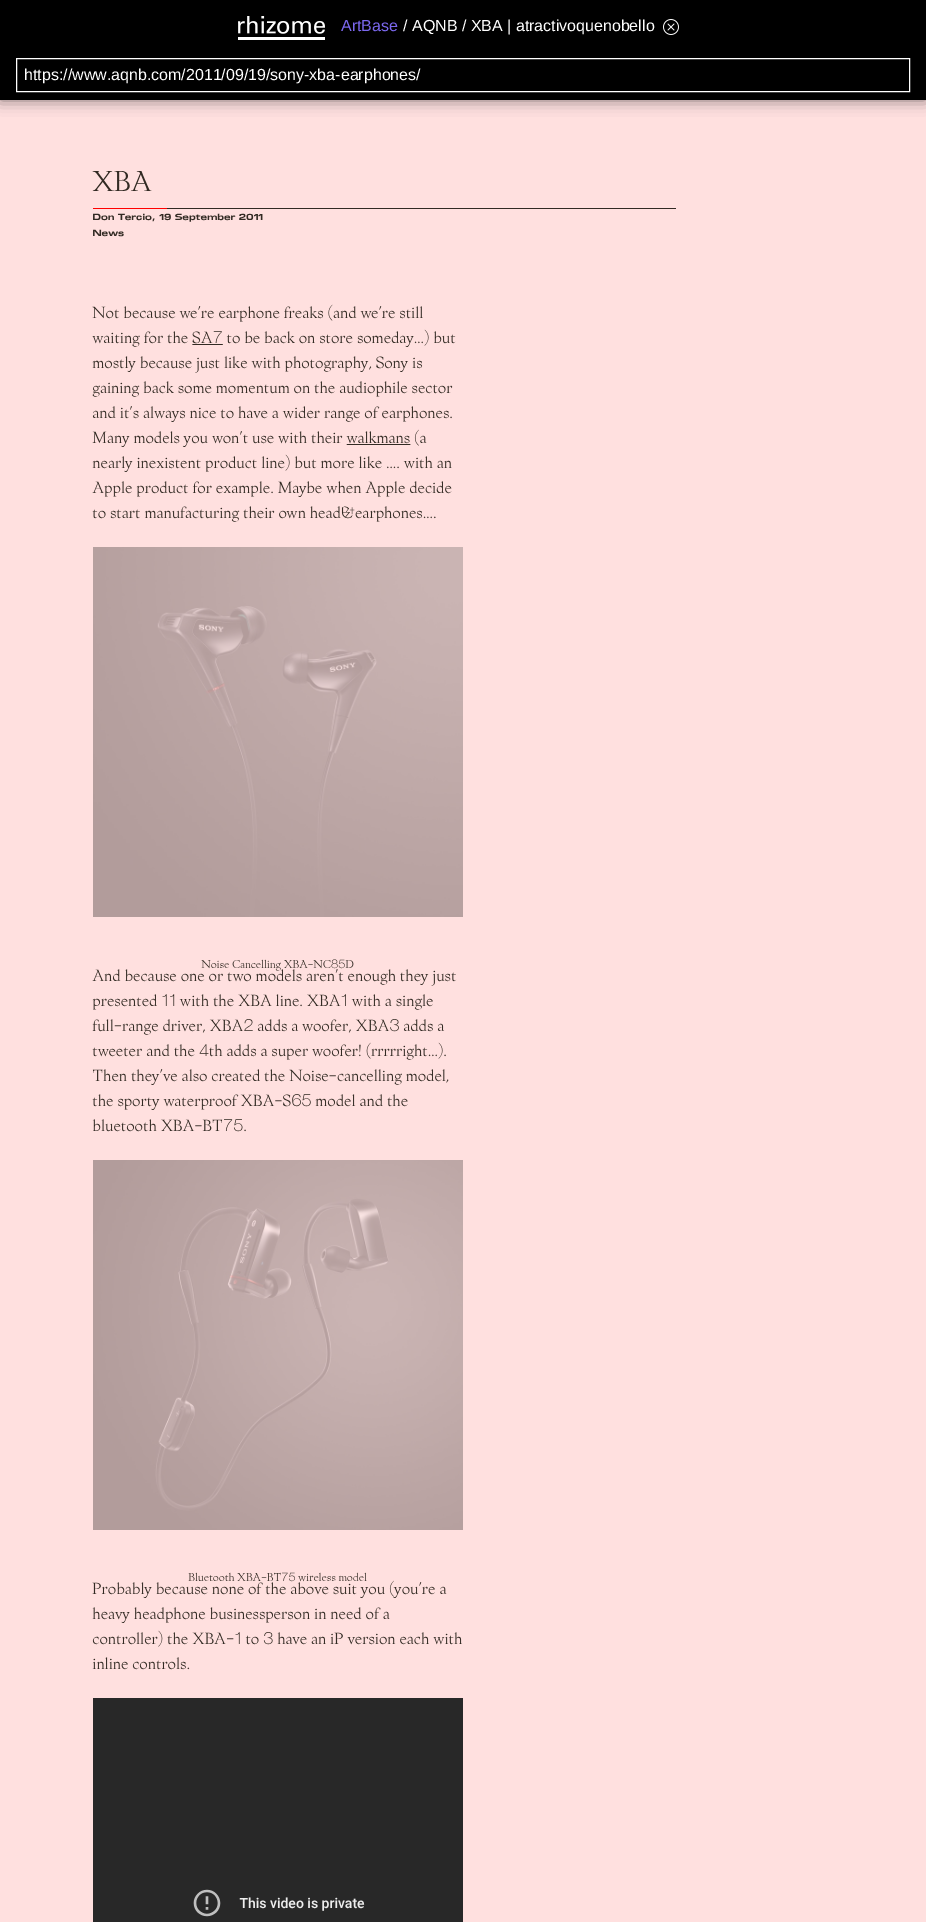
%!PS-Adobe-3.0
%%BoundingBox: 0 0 926 1922
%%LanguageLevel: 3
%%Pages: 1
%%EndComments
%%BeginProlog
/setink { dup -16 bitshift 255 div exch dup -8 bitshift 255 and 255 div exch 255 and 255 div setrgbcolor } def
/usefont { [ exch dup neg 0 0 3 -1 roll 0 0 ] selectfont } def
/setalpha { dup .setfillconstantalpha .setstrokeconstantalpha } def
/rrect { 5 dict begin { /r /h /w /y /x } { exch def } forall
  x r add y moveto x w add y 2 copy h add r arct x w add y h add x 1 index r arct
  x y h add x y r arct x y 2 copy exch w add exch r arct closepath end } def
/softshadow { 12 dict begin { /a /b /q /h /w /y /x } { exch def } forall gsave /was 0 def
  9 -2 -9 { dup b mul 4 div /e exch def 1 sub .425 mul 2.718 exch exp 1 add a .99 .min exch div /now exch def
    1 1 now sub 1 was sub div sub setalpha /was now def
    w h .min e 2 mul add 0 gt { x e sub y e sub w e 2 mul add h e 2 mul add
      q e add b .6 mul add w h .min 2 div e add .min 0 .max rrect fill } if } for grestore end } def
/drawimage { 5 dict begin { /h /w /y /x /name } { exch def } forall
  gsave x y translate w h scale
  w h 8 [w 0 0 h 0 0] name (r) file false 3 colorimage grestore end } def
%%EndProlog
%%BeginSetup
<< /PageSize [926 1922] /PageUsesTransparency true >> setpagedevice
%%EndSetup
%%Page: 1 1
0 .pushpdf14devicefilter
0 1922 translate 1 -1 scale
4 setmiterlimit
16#FFFFFF setink
0 0 926 1922 rectfill
(img3.raw) 0 100 926 1822 drawimage
16#000000 setink
0 0 926 100 0 7.5 0.5 softshadow
0 0 926 100 rectfill
(img1.raw) 238 16 87 24 drawimage
/LiberationSans-Regular 16 usefont
16#7B68EE setink
341 31 moveto (ArtBase) show
16#FFFFFF setink
403 31 moveto (/ AQNB / XBA | atractivoquenobello) show
(img2.raw) 663 19 16 16 drawimage
16.5 58.5 893 33 rectstroke
24 80 moveto (https://www.aqnb.com/2011/09/19/sony-xba-earphones/) show
.poppdf14devicefilter showpage
%%EOF
